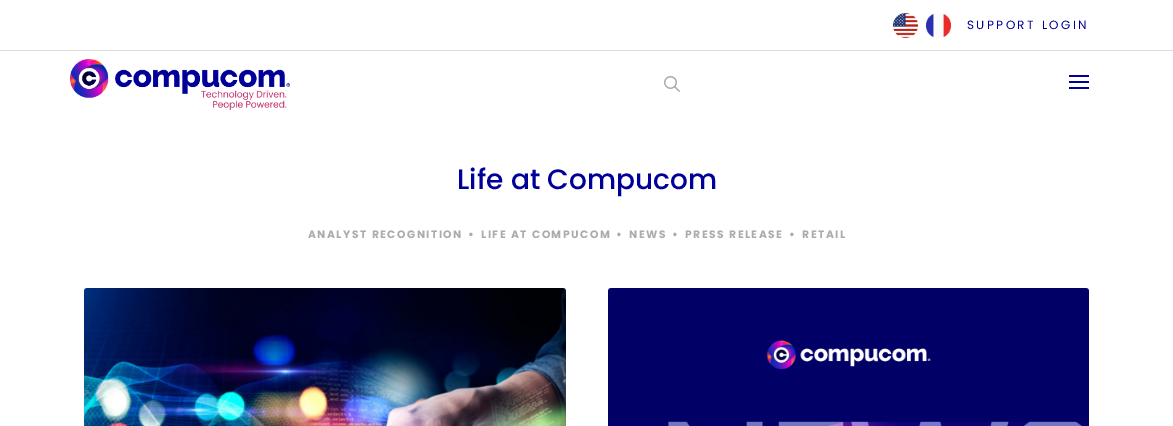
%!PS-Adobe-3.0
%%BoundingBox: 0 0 1173 426
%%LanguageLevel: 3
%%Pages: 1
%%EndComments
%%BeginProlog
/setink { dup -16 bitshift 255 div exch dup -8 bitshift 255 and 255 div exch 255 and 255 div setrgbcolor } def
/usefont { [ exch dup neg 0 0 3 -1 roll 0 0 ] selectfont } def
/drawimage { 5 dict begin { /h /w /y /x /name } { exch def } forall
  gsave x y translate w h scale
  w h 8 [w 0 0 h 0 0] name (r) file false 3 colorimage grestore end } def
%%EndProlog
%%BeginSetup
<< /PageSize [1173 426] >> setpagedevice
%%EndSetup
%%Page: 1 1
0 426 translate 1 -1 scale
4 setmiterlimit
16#FFFFFF setink
0 0 1173 426 rectfill
16#DDDDDD setink
0 50 1173 1 rectfill
(img1.raw) 893 13 25 25 drawimage
(img2.raw) 926 13 25 25 drawimage
/Poppins-Regular 12 usefont
16#000099 setink
967 29 moveto 2.4 0 (SUPPORT LOGIN) ashow
(img3.raw) 70 59 220 51 drawimage
(img4.raw) 664 76 16 16 drawimage
[
    [1069 75 20 2 16#000099]
    [1069 81 20 2 16#000099]
    [1069 87 20 2 16#000099]
] { aload pop setink rectfill } forall
/Poppins-Medium 28 usefont
457 189 moveto (Life at Compucom) show
/Poppins-Bold 10.75 usefont
16#ABABAB setink
308 238 moveto 1.5 0 (ANALYST RECOGNITION) ashow
/Poppins-Regular 14 usefont
468 239 moveto (•) show
/Poppins-Bold 10.75 usefont
481 238 moveto 1.5 0 (LIFE AT COMPUCOM) ashow
/Poppins-Regular 14 usefont
616 239 moveto (•) show
/Poppins-Bold 10.75 usefont
629 238 moveto 1.5 0 (NEWS) ashow
/Poppins-Regular 14 usefont
672 239 moveto (•) show
/Poppins-Bold 10.75 usefont
685 238 moveto 1.5 0 (PRESS RELEASE) ashow
/Poppins-Regular 14 usefont
789 239 moveto (•) show
/Poppins-Bold 10.75 usefont
802 238 moveto 1.5 0 (RETAIL) ashow
(img5.raw) 84 288 482 138 drawimage
(img6.raw) 608 288 481 138 drawimage
showpage
%%EOF
